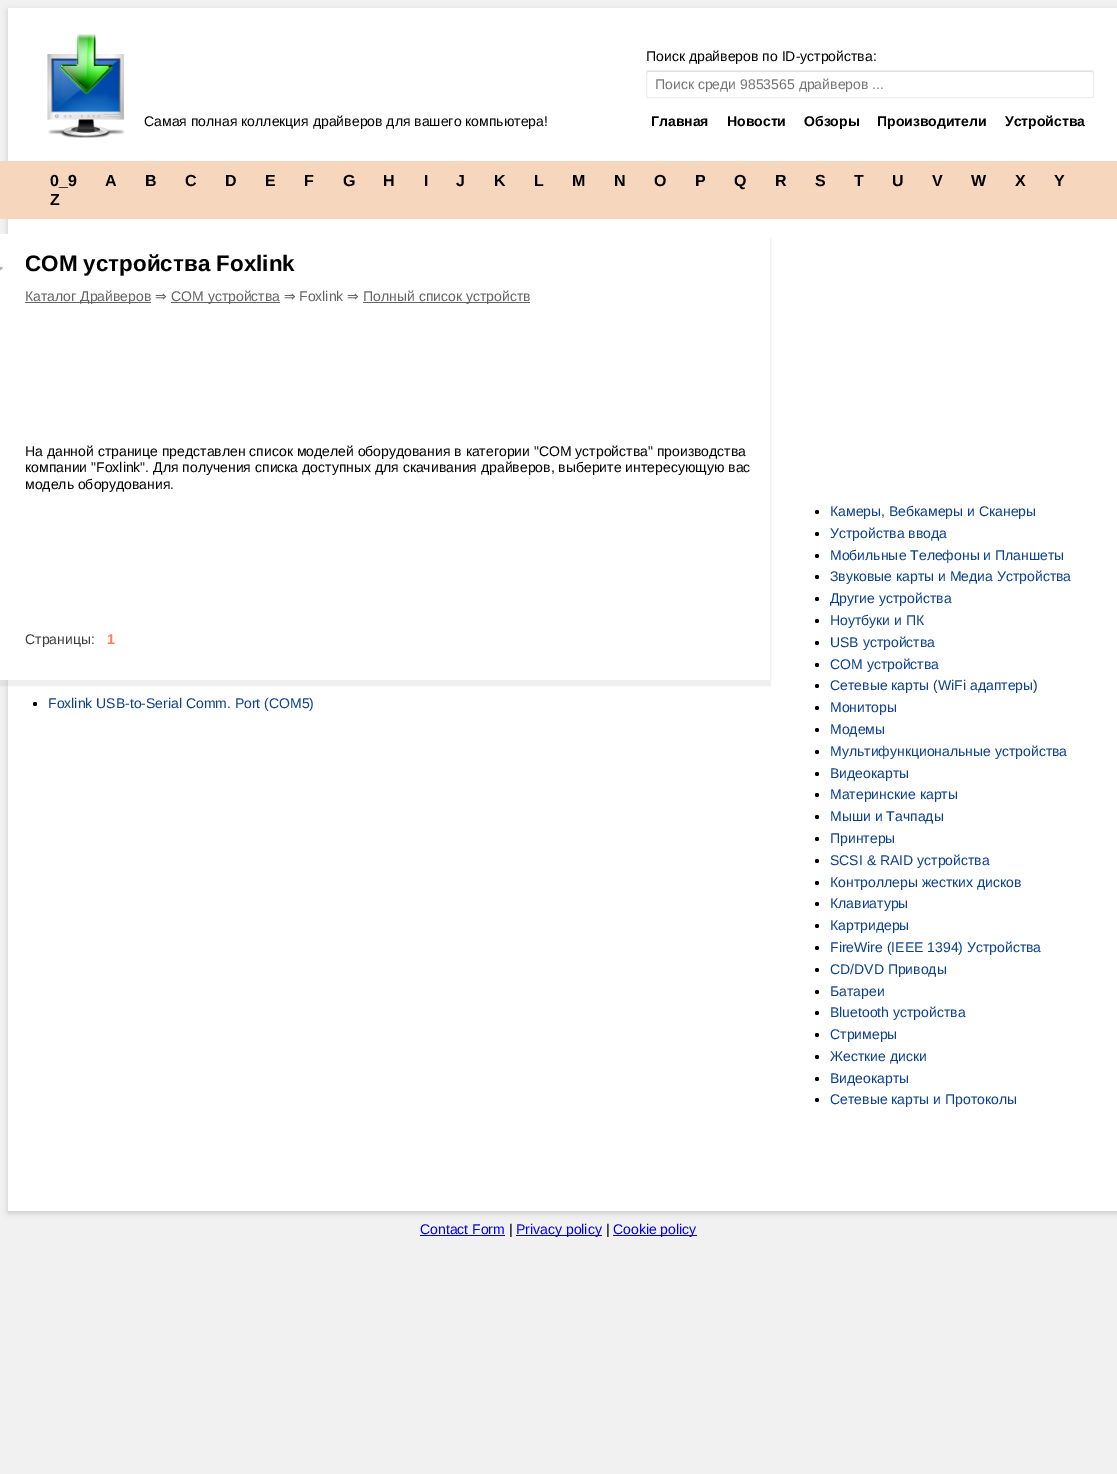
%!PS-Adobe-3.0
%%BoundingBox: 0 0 1117 1474
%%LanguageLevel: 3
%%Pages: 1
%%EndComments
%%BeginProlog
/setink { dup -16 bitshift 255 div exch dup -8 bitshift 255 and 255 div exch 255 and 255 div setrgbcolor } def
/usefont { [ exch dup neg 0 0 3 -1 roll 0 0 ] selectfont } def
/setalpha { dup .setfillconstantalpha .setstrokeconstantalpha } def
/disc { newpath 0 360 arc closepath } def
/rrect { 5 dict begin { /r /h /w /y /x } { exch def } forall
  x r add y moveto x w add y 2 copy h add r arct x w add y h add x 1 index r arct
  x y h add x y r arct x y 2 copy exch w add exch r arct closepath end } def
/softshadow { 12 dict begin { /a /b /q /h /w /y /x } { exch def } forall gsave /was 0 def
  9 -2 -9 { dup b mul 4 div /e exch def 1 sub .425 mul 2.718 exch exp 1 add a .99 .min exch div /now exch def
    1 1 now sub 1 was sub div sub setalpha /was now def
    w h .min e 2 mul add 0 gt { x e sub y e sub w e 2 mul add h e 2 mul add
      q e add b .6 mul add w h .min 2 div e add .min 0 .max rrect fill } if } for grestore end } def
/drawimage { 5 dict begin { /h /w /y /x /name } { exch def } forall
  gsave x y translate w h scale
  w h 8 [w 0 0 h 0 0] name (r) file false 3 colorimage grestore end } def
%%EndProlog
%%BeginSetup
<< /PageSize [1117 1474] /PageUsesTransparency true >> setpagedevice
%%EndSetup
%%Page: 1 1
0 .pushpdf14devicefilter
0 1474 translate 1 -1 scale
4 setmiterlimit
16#F1F1F1 setink
0 0 1117 1474 rectfill
16#646464 setink
8 10 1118 1203 0 3 0.3 softshadow
16#FFFFFF setink
8 8 1109 1203 rectfill
(img1.raw) 47 34 78 104 drawimage
/LiberationSans-Regular 14 usefont
16#000000 setink
144 126 moveto (Самая полная коллекция драйверов для вашего компьютера!) show
646 61 moveto (Поиск драйверов по ID-устройства:) show
16#DDDDDD setink
648 72 moveto 1092 72 lineto 1093 74 lineto 1092 71 lineto 648 71 lineto 647 71 647 72 647 73 curveto closepath 1093 96 moveto 1093 96 lineto closepath eofill
16#EDEDED setink
646.5 70.5 447 27 1.5 rrect stroke
16#757575 setink
655 89 moveto (Поиск среди 9853565 драйверов ...) show
/LiberationSans-Bold 14 usefont
16#000000 setink
[
    [(Главная) 651 126]
    [(Новости) 727 126]
    [(Обзоры) 804 126]
    [(Производители) 877 126]
    [(Устройства) 1005 126]
] { aload pop moveto show } forall
16#F6D6BD setink
0 161 1117 58 rectfill
/LiberationSans-Bold 16 usefont
16#000000 setink
[
    [(0_9) 50 186]
    [(A) 105 186]
    [(B) 145 186]
    [(C) 185 186]
    [(D) 225 186]
    [(E) 265 186]
    [(F) 304 186]
    [(G) 343 186]
    [(H) 383 186]
    [(I) 424 186]
    [(J) 456 186]
    [(K) 494 186]
    [(L) 534 186]
    [(M) 572 186]
    [(N) 614 186]
    [(O) 654 186]
    [(P) 695 186]
    [(Q) 734 186]
    [(R) 775 186]
    [(S) 815 186]
    [(T) 854 186]
    [(U) 892 186]
    [(V) 932 186]
    [(W) 971 186]
    [(X) 1015 186]
    [(Y) 1054 186]
    [(Z) 50 205]
] { aload pop moveto show } forall
16#646464 setink
-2 238 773 448 0 0.5 0.1 softshadow
16#FFFFFF setink
0 234 770 446 rectfill
(img2.raw) 0 266 3 5 drawimage
/LiberationSans-Bold 22.4 usefont
16#000000 setink
25 271 moveto (COM устройства Foxlink) show
16#636363 setink
25 302 126 1 rectfill
/LiberationSans-Regular 14 usefont
25 301 moveto (Каталог Драйверов) show
/DejaVuSans-Regular 14 usefont
155 301 moveto (⇒) show
171 302 109 1 rectfill
/LiberationSans-Regular 14 usefont
171 301 moveto (COM устройства) show
/DejaVuSans-Regular 14 usefont
284 301 moveto (⇒) show
/LiberationSans-Regular 14 usefont
299 301 moveto (Foxlink) show
/DejaVuSans-Regular 14 usefont
347 301 moveto (⇒) show
363 302 167 1 rectfill
/LiberationSans-Regular 14 usefont
363 301 moveto (Полный список устройств) show
16#000000 setink
[
    [(На данной странице представлен список моделей оборудования в категории "COM устройства" производства) 25 456]
    [(компании "Foxlink". Для получения списка доступных для скачивания драйверов, выберите интересующую вас) 25 472]
    [(модель оборудования.) 25 489]
] { aload pop moveto show } forall
16#3D3D3D setink
25 644 moveto (Страницы:) show
/LiberationSans-Bold 14 usefont
16#FF7B5E setink
107 644 moveto (1) show
16#000000 setink
35 704 2 disc fill
/LiberationSans-Regular 14 usefont
16#0C3F8C setink
48 708 moveto (Foxlink USB-to-Serial Comm. Port \(COM5\)) show
16#000000 setink
817 512 2 disc fill
16#0C3F8C setink
830 516 moveto (Камеры, Вебкамеры и Сканеры) show
16#000000 setink
817 534 2 disc fill
16#0C3F8C setink
830 538 moveto (Устройства ввода) show
16#000000 setink
817 556 2 disc fill
16#0C3F8C setink
830 560 moveto (Мобильные Телефоны и Планшеты) show
16#000000 setink
817 577 2 disc fill
16#0C3F8C setink
830 581 moveto (Звуковые карты и Медиа Устройства) show
16#000000 setink
817 599 2 disc fill
16#0C3F8C setink
830 603 moveto (Другие устройства) show
16#000000 setink
817 621 2 disc fill
16#0C3F8C setink
830 625 moveto (Ноутбуки и ПК) show
16#000000 setink
817 643 2 disc fill
16#0C3F8C setink
830 647 moveto (USB устройства) show
16#000000 setink
817 665 2 disc fill
16#0C3F8C setink
830 669 moveto (COM устройства) show
16#000000 setink
817 686 2 disc fill
16#0C3F8C setink
830 690 moveto (Сетевые карты \(WiFi адаптеры\)) show
16#000000 setink
817 708 2 disc fill
16#0C3F8C setink
830 712 moveto (Мониторы) show
16#000000 setink
817 730 2 disc fill
16#0C3F8C setink
830 734 moveto (Модемы) show
16#000000 setink
817 752 2 disc fill
16#0C3F8C setink
830 756 moveto (Мультифункциональные устройства) show
16#000000 setink
817 774 2 disc fill
16#0C3F8C setink
830 778 moveto (Видеокарты) show
16#000000 setink
817 795 2 disc fill
16#0C3F8C setink
830 799 moveto (Материнские карты) show
16#000000 setink
817 817 2 disc fill
16#0C3F8C setink
830 821 moveto (Мыши и Тачпады) show
16#000000 setink
817 839 2 disc fill
16#0C3F8C setink
830 843 moveto (Принтеры) show
16#000000 setink
817 861 2 disc fill
16#0C3F8C setink
830 865 moveto (SCSI & RAID устройства) show
16#000000 setink
817 883 2 disc fill
16#0C3F8C setink
830 887 moveto (Контроллеры жестких дисков) show
16#000000 setink
817 904 2 disc fill
16#0C3F8C setink
830 908 moveto (Клавиатуры) show
16#000000 setink
817 926 2 disc fill
16#0C3F8C setink
830 930 moveto (Картридеры) show
16#000000 setink
817 948 2 disc fill
16#0C3F8C setink
830 952 moveto (FireWire \(IEEE 1394\) Устройства) show
16#000000 setink
817 970 2 disc fill
16#0C3F8C setink
830 974 moveto (CD/DVD Приводы) show
16#000000 setink
817 992 2 disc fill
16#0C3F8C setink
830 996 moveto (Батареи) show
16#000000 setink
817 1013 2 disc fill
16#0C3F8C setink
830 1017 moveto (Bluetooth устройства) show
16#000000 setink
817 1035 2 disc fill
16#0C3F8C setink
830 1039 moveto (Стримеры) show
16#000000 setink
817 1057 2 disc fill
16#0C3F8C setink
830 1061 moveto (Жесткие диски) show
16#000000 setink
817 1079 2 disc fill
16#0C3F8C setink
830 1083 moveto (Видеокарты) show
16#000000 setink
817 1100 2 disc fill
16#0C3F8C setink
830 1104 moveto (Сетевые карты и Протоколы) show
16#0000EE setink
420 1234 moveto (Contact Form) show
420 1235 85 1 rectfill
16#000000 setink
509 1234 moveto (|) show
16#0000EE setink
516 1235 86 1 rectfill
516 1234 moveto (Privacy policy) show
16#000000 setink
606 1234 moveto (|) show
16#0000EE setink
613 1235 84 1 rectfill
613 1234 moveto (Cookie policy) show
.poppdf14devicefilter showpage
%%EOF
